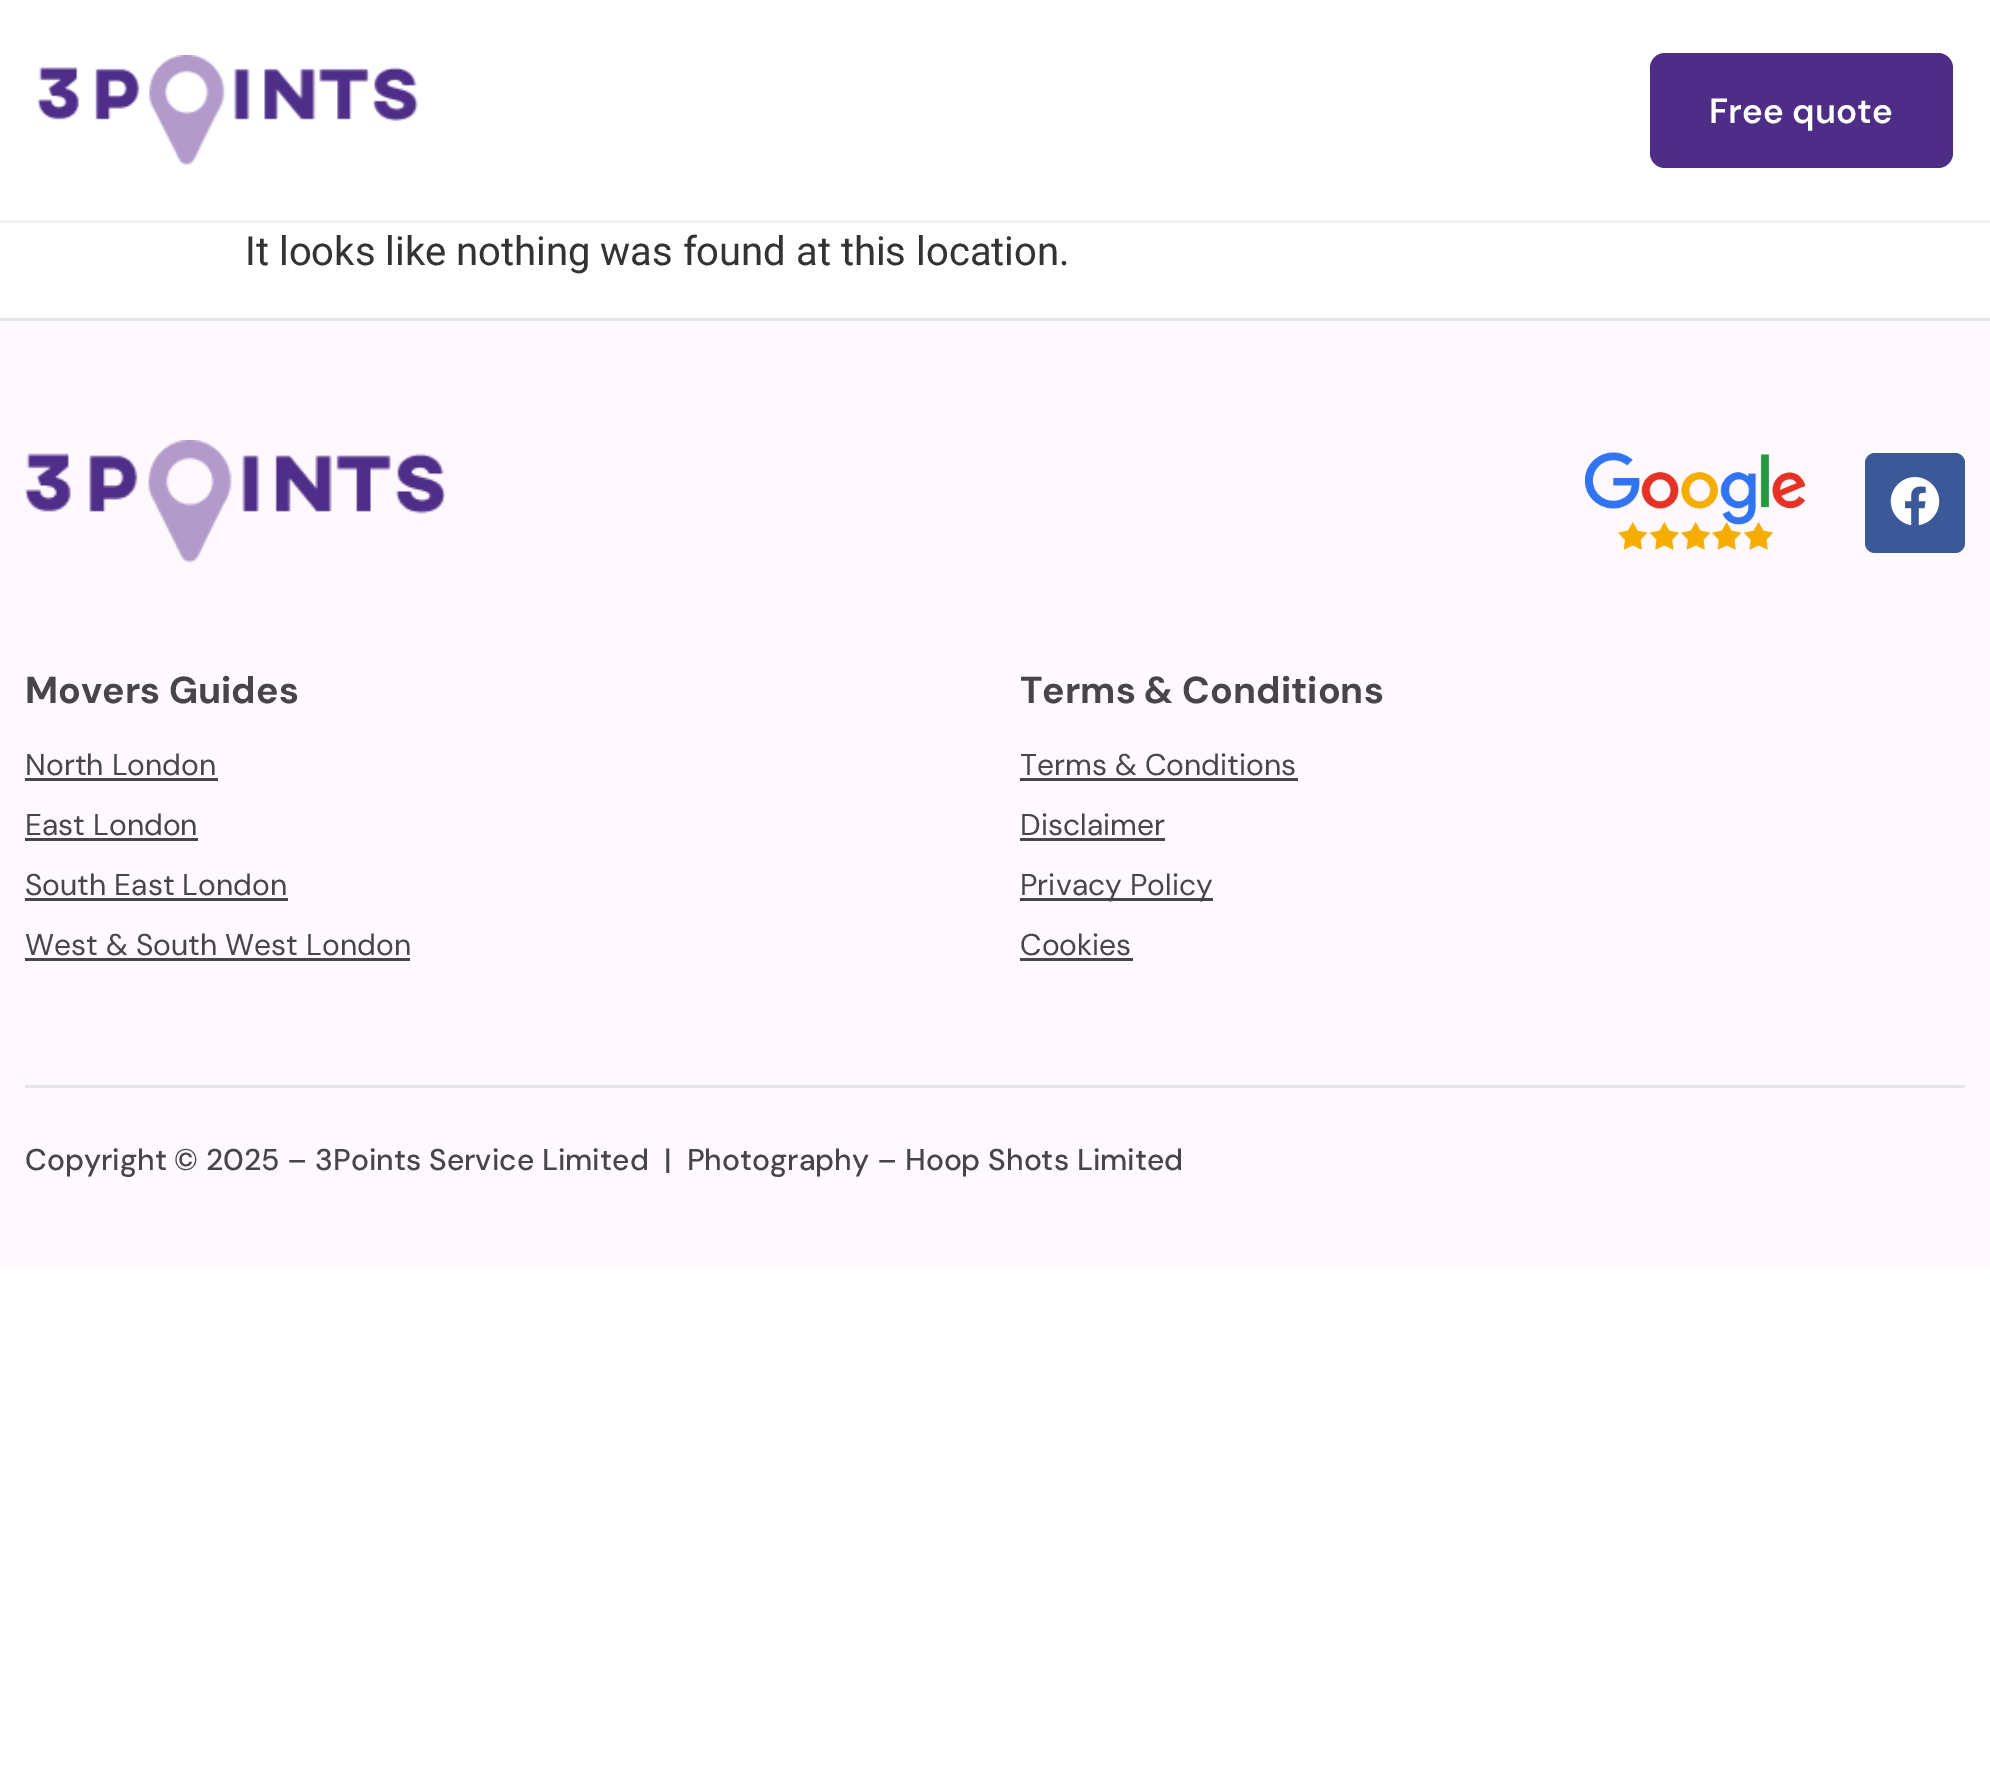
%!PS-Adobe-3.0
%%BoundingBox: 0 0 1990 1787
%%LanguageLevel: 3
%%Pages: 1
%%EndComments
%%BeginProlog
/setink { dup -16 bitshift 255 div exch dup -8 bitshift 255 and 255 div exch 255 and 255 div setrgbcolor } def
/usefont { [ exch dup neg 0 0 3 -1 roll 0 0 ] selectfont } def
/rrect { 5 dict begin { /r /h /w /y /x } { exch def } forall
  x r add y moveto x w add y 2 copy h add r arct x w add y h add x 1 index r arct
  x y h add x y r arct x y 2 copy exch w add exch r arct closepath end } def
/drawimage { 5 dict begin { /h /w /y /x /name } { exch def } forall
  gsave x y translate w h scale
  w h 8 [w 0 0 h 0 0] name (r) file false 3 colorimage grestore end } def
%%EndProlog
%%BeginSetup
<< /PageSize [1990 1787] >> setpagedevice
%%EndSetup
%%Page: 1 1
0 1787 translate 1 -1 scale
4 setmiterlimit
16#FFFFFF setink
0 0 1990 1787 rectfill
16#F2F2F3 setink
0 220 1990 3 rectfill
(img1.raw) 37 55 381 110 drawimage
16#4D2D86 setink
1650 53 303 115 15 rrect fill
/DMSans-SemiBold 35 usefont
16#FFFFFF setink
1709 123 moveto (Free quote) show
/Roboto-Regular 40 usefont
16#333333 setink
245 265 moveto (It looks like nothing was found at this location.) show
16#FFF9FD setink
0 321 1990 947 rectfill
16#E4E4E7 setink
0 318 1990 3 rectfill
(img2.raw) 25 440 420 123 drawimage
(img3.raw) 1585 452 220 98 drawimage
16#3B5998 setink
1865 453 100 100 10 rrect fill
(img4.raw) 1890 477 50 49 drawimage
/DMSans-Bold 37.5 usefont
16#474548 setink
25 703 moveto (Movers Guides) show
/DMSans-Regular 30 usefont
25 775 moveto (North London) show
25 778 193 3 rectfill
25 835 moveto (East London) show
25 838 173 3 rectfill
25 895 moveto (South East London) show
25 898 263 3 rectfill
25 955 moveto (West & South West London) show
25 958 385 3 rectfill
/DMSans-Bold 37.5 usefont
1020 703 moveto (Terms & Conditions) show
/DMSans-Regular 30 usefont
1020 775 moveto (Terms & Conditions) show
1020 778 278 3 rectfill
1020 835 moveto (Disclaimer) show
1020 838 145 3 rectfill
1020 898 193 3 rectfill
1020 895 moveto (Privacy Policy) show
1020 955 moveto (Cookies) show
1020 958 113 3 rectfill
16#E4E4E7 setink
25 1085 1940 3 rectfill
/DMSans-Medium 30 usefont
16#474548 setink
25 1170 moveto (Copyright © 2025 – 3Points Service Limited  |  Photography – Hoop Shots Limited) show
showpage
%%EOF
